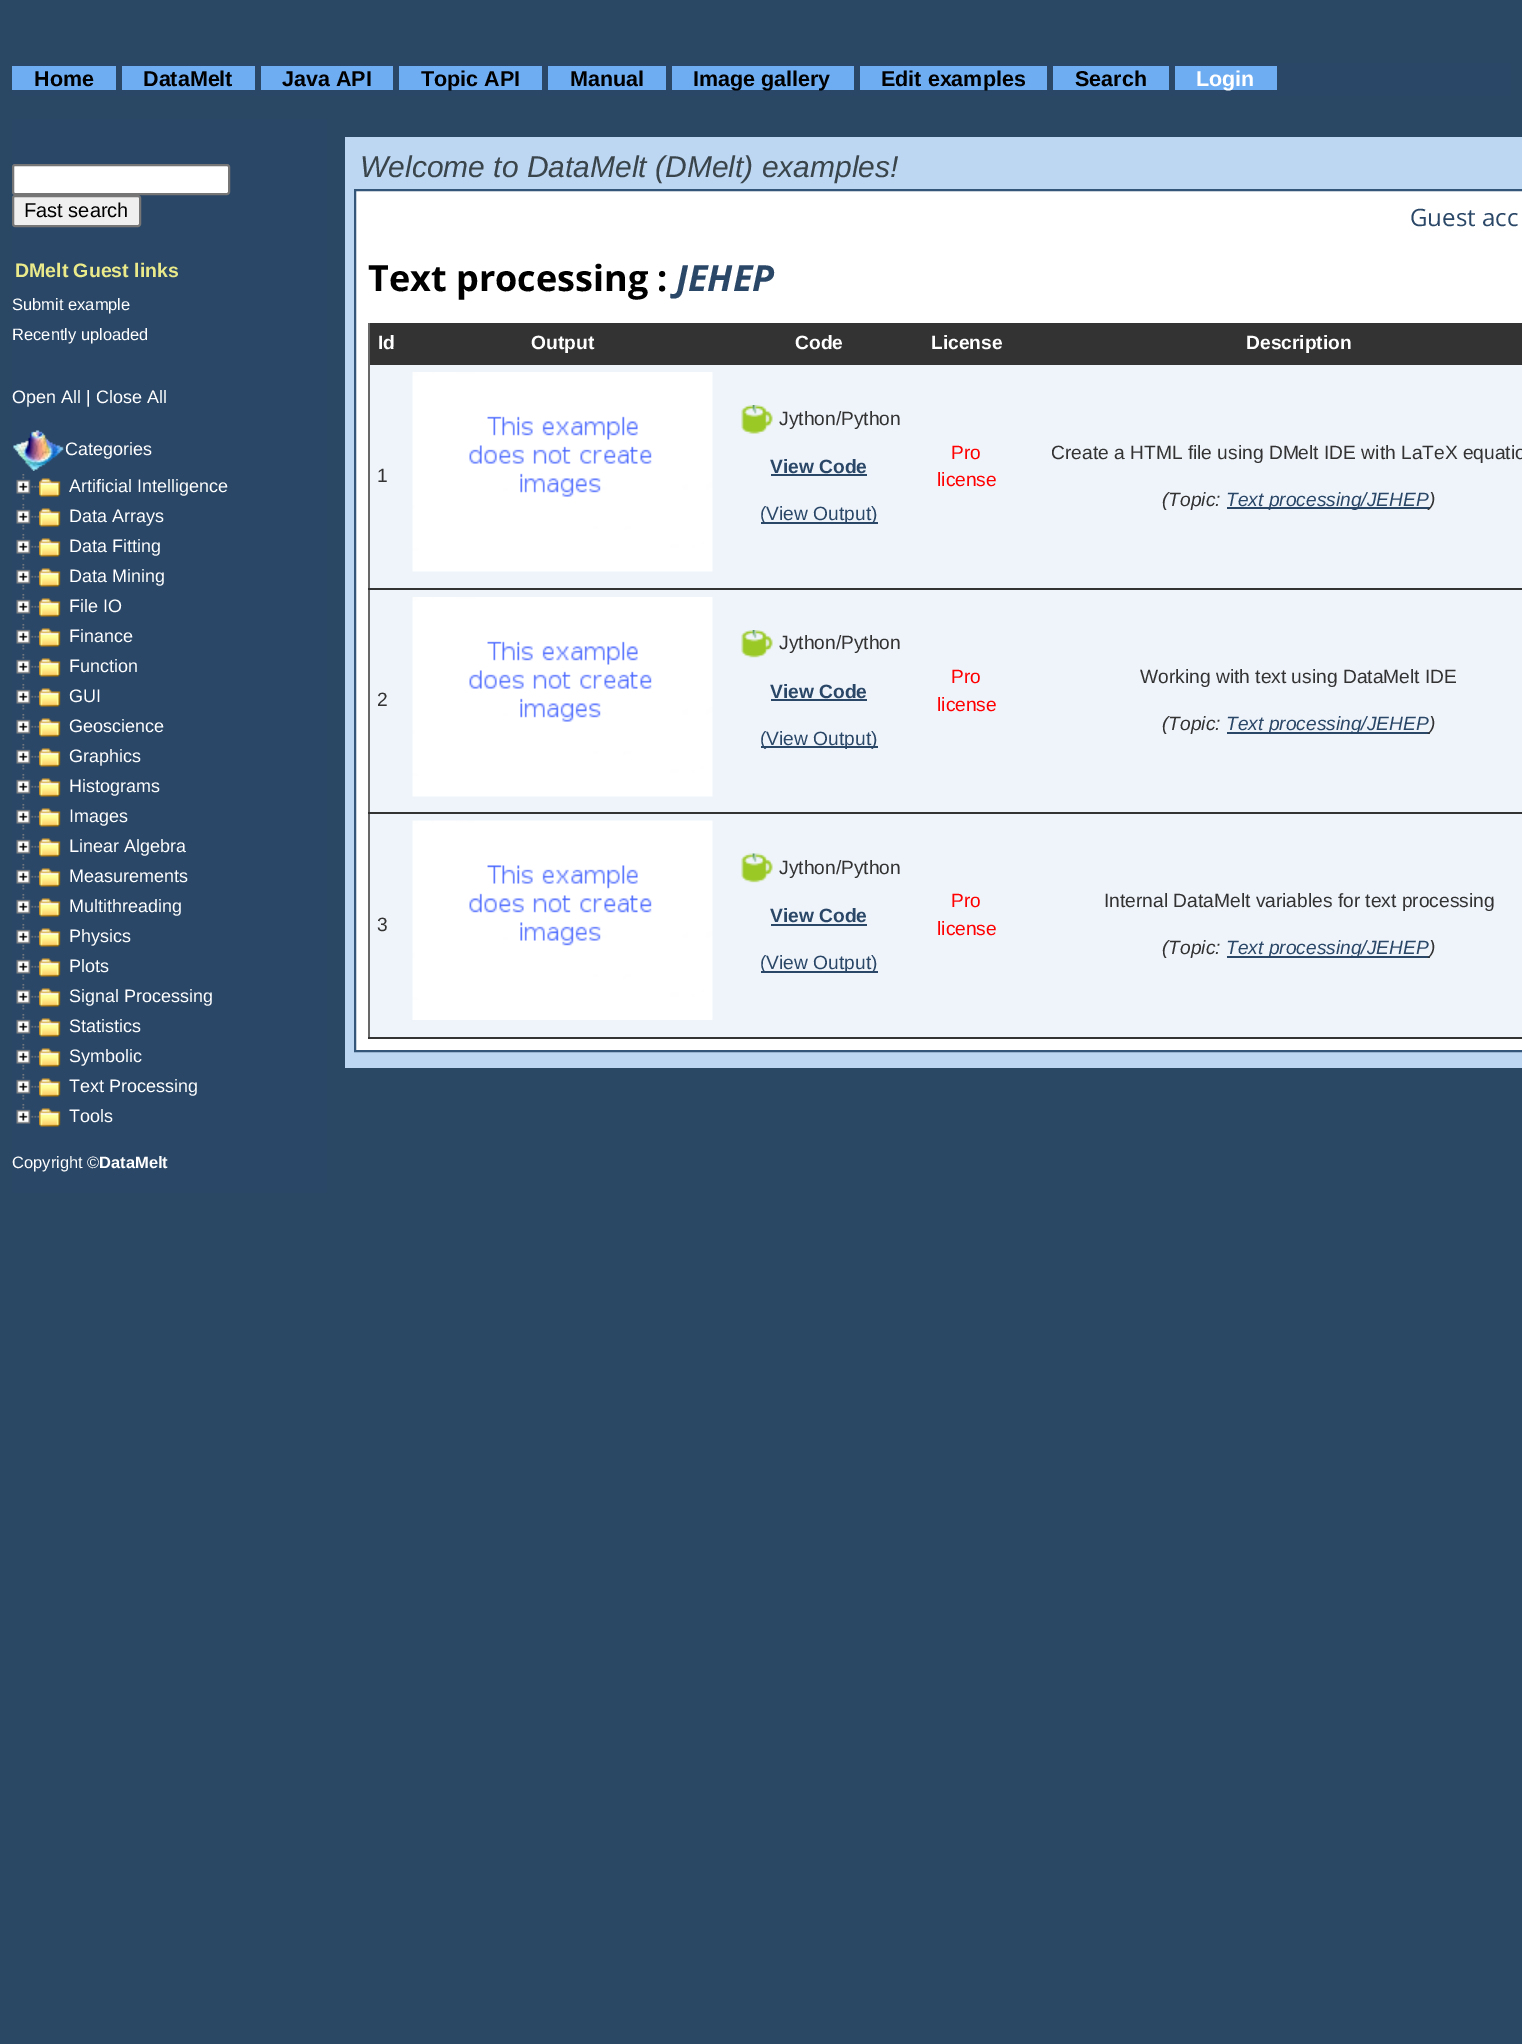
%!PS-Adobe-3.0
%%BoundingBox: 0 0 1522 2044
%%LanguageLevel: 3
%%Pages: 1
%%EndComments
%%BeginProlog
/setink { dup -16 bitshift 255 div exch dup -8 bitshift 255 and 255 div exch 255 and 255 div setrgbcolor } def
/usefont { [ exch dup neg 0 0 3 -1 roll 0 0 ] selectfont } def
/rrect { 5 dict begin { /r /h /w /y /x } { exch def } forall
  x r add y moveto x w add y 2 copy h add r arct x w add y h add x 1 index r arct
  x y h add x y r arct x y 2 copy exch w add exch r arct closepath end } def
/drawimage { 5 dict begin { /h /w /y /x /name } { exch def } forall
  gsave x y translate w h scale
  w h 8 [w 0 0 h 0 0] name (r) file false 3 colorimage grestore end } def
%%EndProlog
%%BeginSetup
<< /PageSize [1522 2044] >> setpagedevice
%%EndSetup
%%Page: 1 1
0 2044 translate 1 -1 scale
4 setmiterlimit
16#2A4764 setink
0 0 1522 2044 rectfill
16#2A4767 setink
12 63 1499 33 rectfill
16#6FADF2 setink
12 66 104 24 rectfill
/LiberationSans-Bold 21.5 usefont
16#000000 setink
34 86 moveto (Home) show
16#6FADF2 setink
122 66 133 24 rectfill
16#000000 setink
143 86 moveto (DataMelt) show
16#6FADF2 setink
261 66 132 24 rectfill
16#000000 setink
282 86 moveto (Java API) show
16#6FADF2 setink
399 66 143 24 rectfill
16#000000 setink
421 86 moveto (Topic API) show
16#6FADF2 setink
548 66 118 24 rectfill
16#000000 setink
570 86 moveto (Manual) show
16#6FADF2 setink
672 66 182 24 rectfill
16#000000 setink
693 86 moveto (Image gallery) show
16#6FADF2 setink
860 66 187 24 rectfill
16#000000 setink
881 86 moveto (Edit examples) show
16#6FADF2 setink
1053 66 116 24 rectfill
16#000000 setink
1075 86 moveto (Search) show
16#6FADF2 setink
1175 66 102 24 rectfill
16#FFFFFF setink
1196 86 moveto (Login) show
16#2A4767 setink
12 119 315 1074 rectfill
16#FFFFFF setink
13 165 216 29 2 rrect gsave fill grestore
16#767676 setink
2 setlinewidth
stroke
16#EFEFEF setink
13 196 127 30 2 rrect gsave fill grestore
16#767676 setink
stroke
/LiberationSans-Regular 20 usefont
16#000000 setink
24 217 moveto (Fast search) show
/LiberationSans-Bold 19.5 usefont
16#EAEA8A setink
15 277 moveto (DMelt Guest links) show
/LiberationSans-Regular 16.5 usefont
16#FFFFFF setink
12 310 moveto (Submit example) show
12 340 moveto (Recently uploaded) show
/LiberationSans-Regular 18 usefont
12 403 moveto (Open All | Close All) show
(img1.raw) 13 430 51 41 drawimage
65 455 moveto (Categories) show
(img2.raw) 16 474 23 26 drawimage
(img3.raw) 39 478 22 19 drawimage
69 492 moveto (Artificial Intelligence) show
(img2.raw) 16 504 23 26 drawimage
(img3.raw) 39 508 22 19 drawimage
69 522 moveto (Data Arrays) show
(img2.raw) 16 534 23 26 drawimage
(img3.raw) 39 538 22 19 drawimage
69 552 moveto (Data Fitting) show
(img2.raw) 16 564 23 26 drawimage
(img3.raw) 39 568 22 19 drawimage
69 582 moveto (Data Mining) show
(img2.raw) 16 594 23 26 drawimage
(img3.raw) 39 598 22 19 drawimage
69 612 moveto (File IO) show
(img2.raw) 16 624 23 26 drawimage
(img3.raw) 39 628 22 19 drawimage
69 642 moveto (Finance) show
(img2.raw) 16 654 23 26 drawimage
(img3.raw) 39 658 22 19 drawimage
69 672 moveto (Function) show
(img2.raw) 16 684 23 26 drawimage
(img3.raw) 39 688 22 19 drawimage
69 702 moveto (GUI) show
(img2.raw) 16 714 23 26 drawimage
(img3.raw) 39 718 22 19 drawimage
69 732 moveto (Geoscience) show
(img2.raw) 16 744 23 26 drawimage
(img3.raw) 39 748 22 19 drawimage
69 762 moveto (Graphics) show
(img2.raw) 16 774 23 26 drawimage
(img3.raw) 39 778 22 19 drawimage
69 792 moveto (Histograms) show
(img2.raw) 16 804 23 26 drawimage
(img3.raw) 39 808 22 19 drawimage
69 822 moveto (Images) show
(img2.raw) 16 834 23 26 drawimage
(img3.raw) 39 838 22 19 drawimage
69 852 moveto (Linear Algebra) show
(img2.raw) 16 864 23 26 drawimage
(img3.raw) 39 868 22 19 drawimage
69 882 moveto (Measurements) show
(img2.raw) 16 894 23 26 drawimage
(img3.raw) 39 898 22 19 drawimage
69 912 moveto (Multithreading) show
(img2.raw) 16 924 23 26 drawimage
(img3.raw) 39 928 22 19 drawimage
69 942 moveto (Physics) show
(img2.raw) 16 954 23 26 drawimage
(img3.raw) 39 958 22 19 drawimage
69 972 moveto (Plots) show
(img2.raw) 16 984 23 26 drawimage
(img3.raw) 39 988 22 19 drawimage
69 1002 moveto (Signal Processing) show
(img2.raw) 16 1014 23 26 drawimage
(img3.raw) 39 1018 22 19 drawimage
69 1032 moveto (Statistics) show
(img2.raw) 16 1044 23 26 drawimage
(img3.raw) 39 1048 22 19 drawimage
69 1062 moveto (Symbolic) show
(img2.raw) 16 1074 23 26 drawimage
(img3.raw) 39 1078 22 19 drawimage
69 1092 moveto (Text Processing) show
(img4.raw) 16 1104 23 20 drawimage
(img3.raw) 39 1108 22 19 drawimage
69 1122 moveto (Tools) show
/LiberationSans-Regular 16.5 usefont
12 1168 moveto (Copyright ©) show
/LiberationSans-Bold 16.5 usefont
99 1168 moveto (DataMelt) show
16#BDD6F2 setink
345 137 1177 931 rectfill
/LiberationSans-Italic 30 usefont
16#3A454B setink
360 177 moveto (Welcome to DataMelt \(DMelt\) examples!) show
16#FFFFFF setink
355 190 moveto 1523 190 lineto 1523 1051 lineto 355 1051 lineto closepath gsave fill grestore
16#345678 setink
stroke
/OpenSans-Regular 24 usefont
16#2A4767 setink
1410 226 moveto (Guest acc) show
/OpenSans-Bold 36 usefont
16#000000 setink
368 291 moveto (Text processing :) show
/OpenSans-BoldItalic 36 usefont
16#2A4767 setink
676 291 moveto (JEHEP) show
[
    [370 365 1152 672 16#EFF4FB]
    [368 323 2 715 16#686868]
    [370 323 1152 42 16#333333]
] { aload pop setink rectfill } forall
/LiberationSans-Bold 19.2 usefont
16#FFFFFF setink
[
    [(Id) 378 349]
    [(Output) 531 349]
    [(Code) 795 349]
    [(License) 931 349]
    [(Description) 1246 349]
] { aload pop moveto show } forall
/LiberationSans-Regular 19.2 usefont
16#333333 setink
377 482 moveto (1) show
(img5.raw) 412 372 301 200 drawimage
(img6.raw) 741 405 32 29 drawimage
779 425 moveto (Jython/Python) show
/LiberationSans-Bold 19.2 usefont
16#2A4767 setink
770 473 moveto (View Code) show
771 474 96 2 rectfill
761 522 117 2 rectfill
/LiberationSans-Regular 19.2 usefont
760 520 moveto (\(View Output\)) show
16#FF0000 setink
951 459 moveto (Pro) show
937 486 moveto (license) show
16#333333 setink
368 588 1154 2 rectfill
1051 459 moveto (Create a HTML file using DMelt IDE with LaTeX equatio) show
/LiberationSans-Italic 19.2 usefont
1162 506 moveto (\(Topic:) show
16#2A4767 setink
1227 507 203 2 rectfill
1226 506 moveto (Text processing/JEHEP) show
16#333333 setink
1429 506 moveto (\)) show
/LiberationSans-Regular 19.2 usefont
377 706 moveto (2) show
(img5.raw) 412 597 301 200 drawimage
(img7.raw) 741 630 32 28 drawimage
779 649 moveto (Jython/Python) show
/LiberationSans-Bold 19.2 usefont
16#2A4767 setink
770 698 moveto (View Code) show
771 699 96 2 rectfill
761 746 117 2 rectfill
/LiberationSans-Regular 19.2 usefont
760 745 moveto (\(View Output\)) show
16#FF0000 setink
951 683 moveto (Pro) show
937 711 moveto (license) show
16#333333 setink
368 812 1154 2 rectfill
1140 683 moveto (Working with text using DataMelt IDE) show
/LiberationSans-Italic 19.2 usefont
1162 730 moveto (\(Topic:) show
16#2A4767 setink
1227 732 203 2 rectfill
1226 730 moveto (Text processing/JEHEP) show
16#333333 setink
1429 730 moveto (\)) show
/LiberationSans-Regular 19.2 usefont
377 931 moveto (3) show
(img8.raw) 412 820 301 200 drawimage
(img9.raw) 741 853 32 30 drawimage
779 874 moveto (Jython/Python) show
/LiberationSans-Bold 19.2 usefont
16#2A4767 setink
770 922 moveto (View Code) show
771 924 96 2 rectfill
761 971 117 2 rectfill
/LiberationSans-Regular 19.2 usefont
760 969 moveto (\(View Output\)) show
16#FF0000 setink
951 907 moveto (Pro) show
937 935 moveto (license) show
16#333333 setink
368 1037 1154 2 rectfill
1104 907 moveto (Internal DataMelt variables for text processing) show
/LiberationSans-Italic 19.2 usefont
1162 954 moveto (\(Topic:) show
16#2A4767 setink
1227 956 203 2 rectfill
1226 954 moveto (Text processing/JEHEP) show
16#333333 setink
1429 954 moveto (\)) show
showpage
%%EOF
